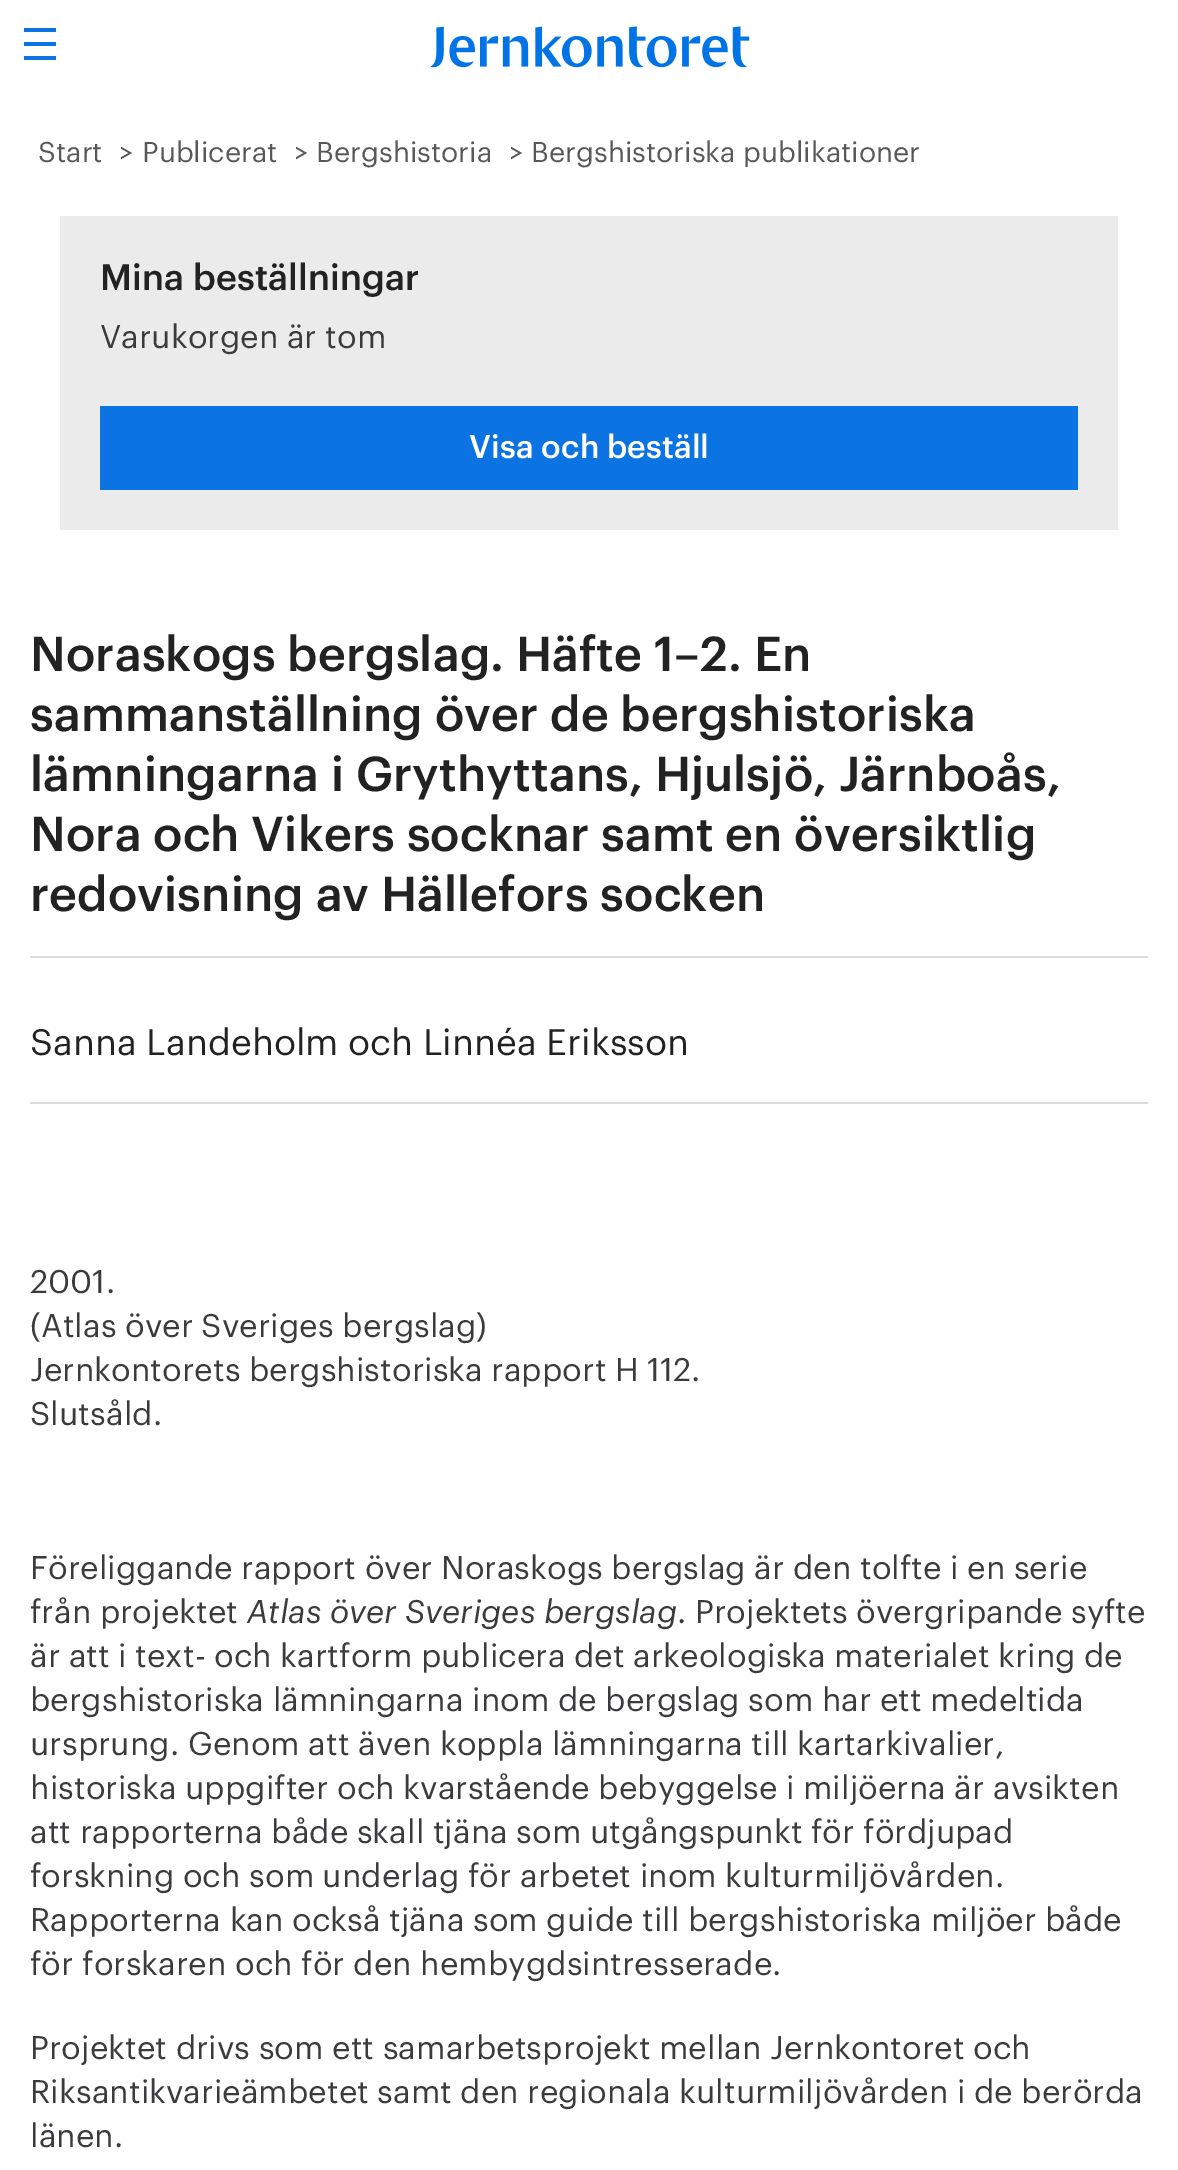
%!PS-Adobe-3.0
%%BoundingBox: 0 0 1178 2170
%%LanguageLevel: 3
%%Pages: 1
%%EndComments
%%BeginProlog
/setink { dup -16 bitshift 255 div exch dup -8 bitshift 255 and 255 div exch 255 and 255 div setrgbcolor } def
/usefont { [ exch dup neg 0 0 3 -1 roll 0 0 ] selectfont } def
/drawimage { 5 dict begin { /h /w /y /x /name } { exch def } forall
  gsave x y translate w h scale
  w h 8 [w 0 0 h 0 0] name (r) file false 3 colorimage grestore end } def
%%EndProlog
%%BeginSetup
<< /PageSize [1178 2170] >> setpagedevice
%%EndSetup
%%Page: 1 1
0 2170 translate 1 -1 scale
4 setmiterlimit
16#FFFFFF setink
0 0 1178 2170 rectfill
[
    [24 56 32 4 16#0C73E3]
    [24 42 32 4 16#0C73E3]
    [24 28 32 4 16#0C73E3]
] { aload pop setink rectfill } forall
(img1.raw) 430 26 320 42 drawimage
/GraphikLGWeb-Regular 28 usefont
16#58585A setink
[
    [(Start) 38 162]
    [(>) 119 162]
    [(Publicerat) 142 162]
    [(>) 294 162]
    [(Bergshistoria) 316 162]
    [(>) 509 162]
    [(Bergshistoriska publikationer) 531 162]
] { aload pop moveto show } forall
16#EBEBEB setink
60 216 1058 314 rectfill
/GraphikLGWeb-Medium 36 usefont
16#222222 setink
100 290 moveto (Mina beställningar) show
/GraphikLGWeb-Regular 32 usefont
16#3C3A3D setink
100 348 moveto (Varukorgen är tom) show
16#0C73E3 setink
100 406 978 84 rectfill
/GraphikLGWeb-Medium 32 usefont
16#FFFFFF setink
469 458 moveto (Visa och beställ) show
16#DADADB setink
30 956 1118 2 rectfill
/GraphikLGWeb-Medium 48 usefont
16#222222 setink
[
    [(Noraskogs bergslag. Häfte 1–2. En) 30 671]
    [(sammanställning över de bergshistoriska) 30 731]
    [(lämningarna i Grythyttans, Hjulsjö, Järnboås,) 30 791]
    [(Nora och Vikers socknar samt en översiktlig) 30 851]
    [(redovisning av Hällefors socken) 30 911]
] { aload pop moveto show } forall
16#DADADB setink
30 1102 1118 2 rectfill
/GraphikLGWeb-Regular 36 usefont
16#222222 setink
30 1055 moveto (Sanna Landeholm och Linnéa Eriksson) show
/GraphikLGWeb-Regular 32 usefont
16#3C3A3D setink
[
    [(2001.) 30 1293]
    [(\(Atlas över Sveriges bergslag\)) 30 1337]
    [(Jernkontorets bergshistoriska rapport H 112.) 30 1381]
    [(Slutsåld.) 30 1425]
    [(Föreliggande rapport över Noraskogs bergslag är den tolfte i en serie) 30 1579]
    [(från projektet) 30 1623]
] { aload pop moveto show } forall
/GraphikLGWeb-Italic 32 usefont
247 1623 moveto (Atlas över Sveriges bergslag) show
/GraphikLGWeb-Regular 32 usefont
[
    [(. Projektets övergripande syfte) 677 1623]
    [(är att i text- och kartform publicera det arkeologiska materialet kring de) 30 1667]
    [(bergshistoriska lämningarna inom de bergslag som har ett medeltida) 30 1711]
    [(ursprung. Genom att även koppla lämningarna till kartarkivalier,) 30 1755]
    [(historiska uppgifter och kvarstående bebyggelse i miljöerna är avsikten) 30 1799]
    [(att rapporterna både skall tjäna som utgångspunkt för fördjupad) 30 1843]
    [(forskning och som underlag för arbetet inom kulturmiljövården.) 30 1887]
    [(Rapporterna kan också tjäna som guide till bergshistoriska miljöer både) 30 1931]
    [(för forskaren och för den hembygdsintresserade.) 30 1975]
    [(Projektet drivs som ett samarbetsprojekt mellan Jernkontoret och) 30 2059]
    [(Riksantikvarieämbetet samt den regionala kulturmiljövården i de berörda) 30 2103]
    [(länen.) 30 2147]
] { aload pop moveto show } forall
showpage
%%EOF
